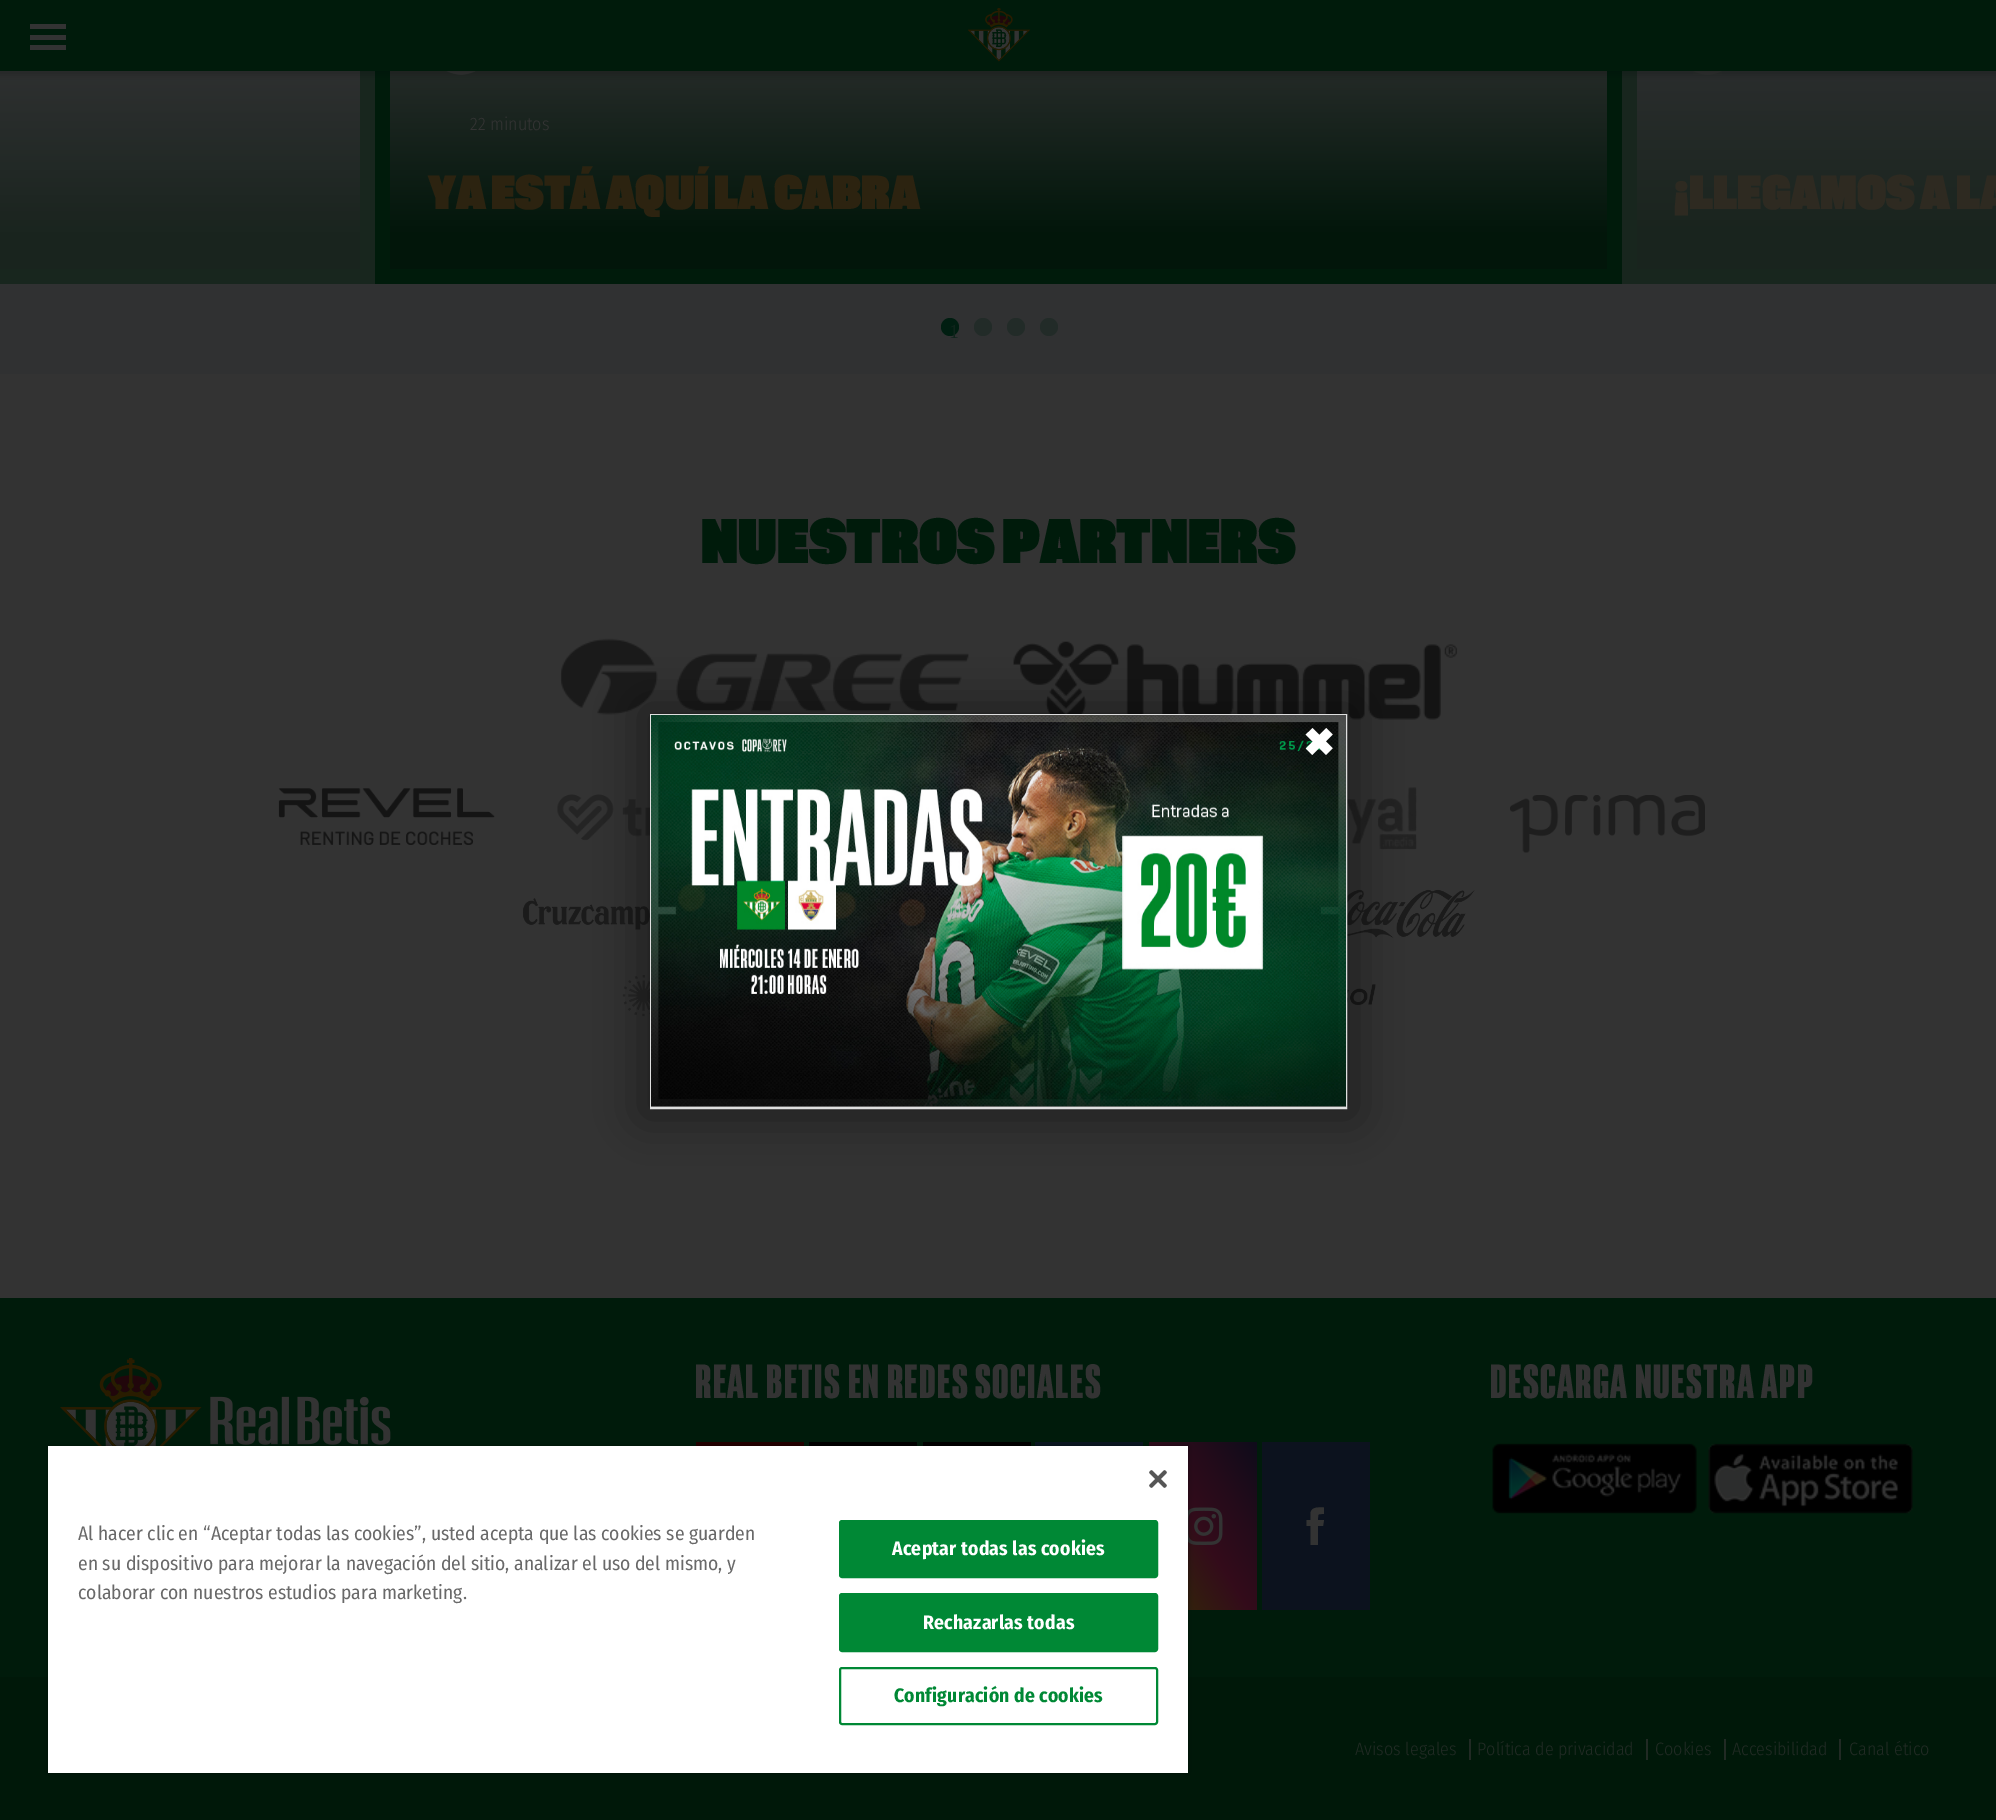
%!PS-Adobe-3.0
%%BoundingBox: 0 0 1996 1820
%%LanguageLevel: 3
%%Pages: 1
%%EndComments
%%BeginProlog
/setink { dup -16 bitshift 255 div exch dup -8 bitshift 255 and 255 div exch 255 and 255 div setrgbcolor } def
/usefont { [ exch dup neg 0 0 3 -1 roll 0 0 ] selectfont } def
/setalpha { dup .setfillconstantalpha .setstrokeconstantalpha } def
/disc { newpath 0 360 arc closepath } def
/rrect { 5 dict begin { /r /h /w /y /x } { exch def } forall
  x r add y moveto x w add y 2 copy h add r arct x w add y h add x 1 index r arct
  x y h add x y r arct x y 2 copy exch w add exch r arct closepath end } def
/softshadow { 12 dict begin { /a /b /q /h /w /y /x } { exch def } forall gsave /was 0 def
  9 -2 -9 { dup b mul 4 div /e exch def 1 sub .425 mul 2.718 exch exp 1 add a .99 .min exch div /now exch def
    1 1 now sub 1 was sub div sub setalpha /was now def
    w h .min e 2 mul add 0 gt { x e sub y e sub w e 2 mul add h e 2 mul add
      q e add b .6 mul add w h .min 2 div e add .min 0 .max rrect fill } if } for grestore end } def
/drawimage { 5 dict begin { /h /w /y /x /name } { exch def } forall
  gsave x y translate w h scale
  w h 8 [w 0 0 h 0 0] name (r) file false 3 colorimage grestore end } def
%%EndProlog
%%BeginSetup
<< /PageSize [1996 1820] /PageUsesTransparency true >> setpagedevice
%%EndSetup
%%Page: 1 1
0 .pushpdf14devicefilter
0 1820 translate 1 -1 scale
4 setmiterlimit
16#333333 setink
0 0 1996 1820 rectfill
16#18261E setink
15 setlinewidth
-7.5 -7.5 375 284 rectstroke
gsave 0 71 moveto 360 71 lineto 360 269 lineto 0 269 lineto closepath clip newpath
<< /ShadingType 2 /ColorSpace /DeviceRGB /Coords [-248 269 -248 54] /Extend [true true] /Function << /FunctionType 3 /Domain [0 1] /Functions [<< /FunctionType 2 /Domain [0 1] /C0 [0.098 0.141 0.118] /C1 [0.098 0.141 0.118] /N 1 >> << /FunctionType 2 /Domain [0 1] /C0 [0.098 0.141 0.118] /C1 [0.188 0.192 0.196] /N 1 >>] /Bounds [0.13] /Encode [0 1 0 1] >> >> shfill grestore
16#001B0B setink
382.5 -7.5 1232 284 rectstroke
gsave 390 71 moveto 1607 71 lineto 1607 269 lineto 390 269 lineto closepath clip newpath
<< /ShadingType 2 /ColorSpace /DeviceRGB /Coords [998 269 998 10] /Extend [true true] /Function << /FunctionType 3 /Domain [0 1] /Functions [<< /FunctionType 2 /Domain [0 1] /C0 [0.008 0.086 0.039] /C1 [0.008 0.086 0.039] /N 1 >> << /FunctionType 2 /Domain [0 1] /C0 [0.008 0.086 0.039] /C1 [0.188 0.192 0.196] /N 1 >>] /Bounds [0.13] /Encode [0 1 0 1] >> >> shfill grestore
(img2.raw) 446 71 30 4 drawimage
16#18261E setink
1629.5 -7.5 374 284 rectstroke
gsave 1637 71 moveto 1996 71 lineto 1996 269 lineto 1637 269 lineto closepath clip newpath
<< /ShadingType 2 /ColorSpace /DeviceRGB /Coords [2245 269 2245 10] /Extend [true true] /Function << /FunctionType 3 /Domain [0 1] /Functions [<< /FunctionType 2 /Domain [0 1] /C0 [0.098 0.141 0.118] /C1 [0.098 0.141 0.118] /N 1 >> << /FunctionType 2 /Domain [0 1] /C0 [0.098 0.141 0.118] /C1 [0.188 0.192 0.196] /N 1 >>] /Bounds [0.13] /Encode [0 1 0 1] >> >> shfill grestore
(img3.raw) 1693 71 29 4 drawimage
16#000000 setink
-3 -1 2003 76 0 4 0.2 softshadow
[
    [0 0 1996 71 16#001B0B]
    [30 35 36 5 16#333333]
    [30 24 36 5 16#333333]
    [30 45 36 5 16#333333]
] { aload pop setink rectfill } forall
(img1.raw) 968 8 63 54 drawimage
16#303132 setink
0 284 1996 90 rectfill
/FiraSansCondensed-Light 18 usefont
16#333333 setink
470 130 moveto (22 minutos) show
/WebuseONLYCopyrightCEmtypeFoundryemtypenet-Bold 48 usefont
16#2C2310 setink
428 209 moveto (YA ESTÁ AQUÍ LA CABRA) show
16#2E2A21 setink
1674 209 moveto (¡LLEGAMOS A LA) show
16#001E11 setink
950 327 9 disc fill
/LiberationSerif-Regular 20 usefont
16#0F241B setink
949 338 moveto (1) show
16#222B28 setink
983 327 9 disc fill
1016 327 9 disc fill
1049 327 9 disc fill
(img6.raw) 560 638 409 77 drawimage
(img7.raw) 1013 641 445 79 drawimage
(img9.raw) 557 794 93 47 drawimage
(img10.raw) 1347 787 70 63 drawimage
(img12.raw) 523 898 127 32 drawimage
(img13.raw) 1347 889 128 49 drawimage
(img14.raw) 622 975 28 42 drawimage
(img15.raw) 1347 984 29 21 drawimage
16#000000 setink
642 707 713 409 0 22.5 0.4 softshadow
16#DFDFDF setink
2 setlinewidth
651 715 695 393 rectstroke
16#FFFFFF setink
651 1106 695 1 rectfill
gsave
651 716 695 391 rectclip
16#000000 setink
650 714 697 395 0 1 0.7 softshadow
grestore
(img4.raw) 651 715 695 392 drawimage
/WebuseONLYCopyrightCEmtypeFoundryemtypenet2-Bold 90 usefont
1305 773 moveto (×) show
16#001B0B setink
0 1298 1996 379 rectfill
(img16.raw) 60 1358 331 88 drawimage
[
    [696 1442 108 4 16#250000]
    [809 1442 108 4 16#000000]
    [923 1442 108 4 16#000000]
    [1035 1442 108 4 16#0A1623]
] { aload pop setink rectfill } forall
(img17.raw) 1149 1442 108 168 drawimage
16#001809 setink
0 1677 1996 143 rectfill
16#000000 setink
48 1446 1140 327 0 3 0.35 softshadow
16#FFFFFF setink
48 1446 1140 327 rectfill
(img5.raw) 1149 1470 18 18 drawimage
/FiraSansCondensed-Regular 19.5 usefont
16#696969 setink
[
    [(Al hacer clic en “Aceptar todas las cookies”, usted acepta que las cookies se guarden) 78 1540]
    [(en su dispositivo para mejorar la navegación del sitio, analizar el uso del mismo, y) 78 1570]
    [(colaborar con nuestros estudios para marketing.) 78 1599]
] { aload pop moveto show } forall
16#008835 setink
840 1521 317 56 2 rrect gsave fill grestore
stroke
/FiraSansCondensed-Bold 19.5 usefont
16#FFFFFF setink
892 1555 moveto 0.2 0 (Aceptar todas las cookies) ashow
16#008835 setink
840 1594 317 57 2 rrect gsave fill grestore
stroke
16#FFFFFF setink
923 1629 moveto 0.2 0 (Rechazarlas todas) ashow
16#008835 setink
840 1668 317 56 2 rrect stroke
894 1702 moveto 0.2 0 (Configuración de cookies) ashow
/WebuseONLYCopyrightCEmtypeFoundryemtypenet-Bold 63 usefont
16#001B0B setink
701 563 moveto (NUESTROS PARTNERS) show
(img8.raw) 278 788 217 57 drawimage
(img11.raw) 1510 795 195 58 drawimage
/WebuseONLYCopyrightCEmtypeFoundryemtypenet-Medium 48 usefont
16#333333 setink
695 1398 moveto 1.5 0 (REAL BETIS EN REDES SOCIALES) ashow
16#0C121E setink
1262 1442 108 168 rectfill
16#333333 setink
1324 1514 moveto 1317.5 1514 1318 1513.5 1318 1520 curveto 1324 1520 lineto 1323 1526 lineto 1318 1526 lineto 1318 1545 lineto 1310.5 1545 lineto 1310.5 1526 lineto 1306.5 1526 lineto 1306.5 1520 lineto 1310.5 1520 lineto 1310.5 1513 lineto 1311.5 1506.5 1319 1507.5 1324 1507.5 curveto closepath fill
1490 1398 moveto 1.5 0 (DESCARGA NUESTRA APP) ashow
(img18.raw) 1492 1443 205 71 drawimage
(img19.raw) 1708 1443 205 71 drawimage
/FiraSansCondensed-Light 18 usefont
16#212A24 setink
1355 1755 moveto (Avisos legales) show
1477 1755 moveto (Política de privacidad) show
1469 1739 2 21 rectfill
1655 1755 moveto (Cookies) show
1646 1739 2 21 rectfill
1732 1755 moveto (Accesibilidad) show
1724 1739 2 21 rectfill
1849 1755 moveto (Canal ético) show
1839 1739 2 21 rectfill
.poppdf14devicefilter showpage
%%EOF
